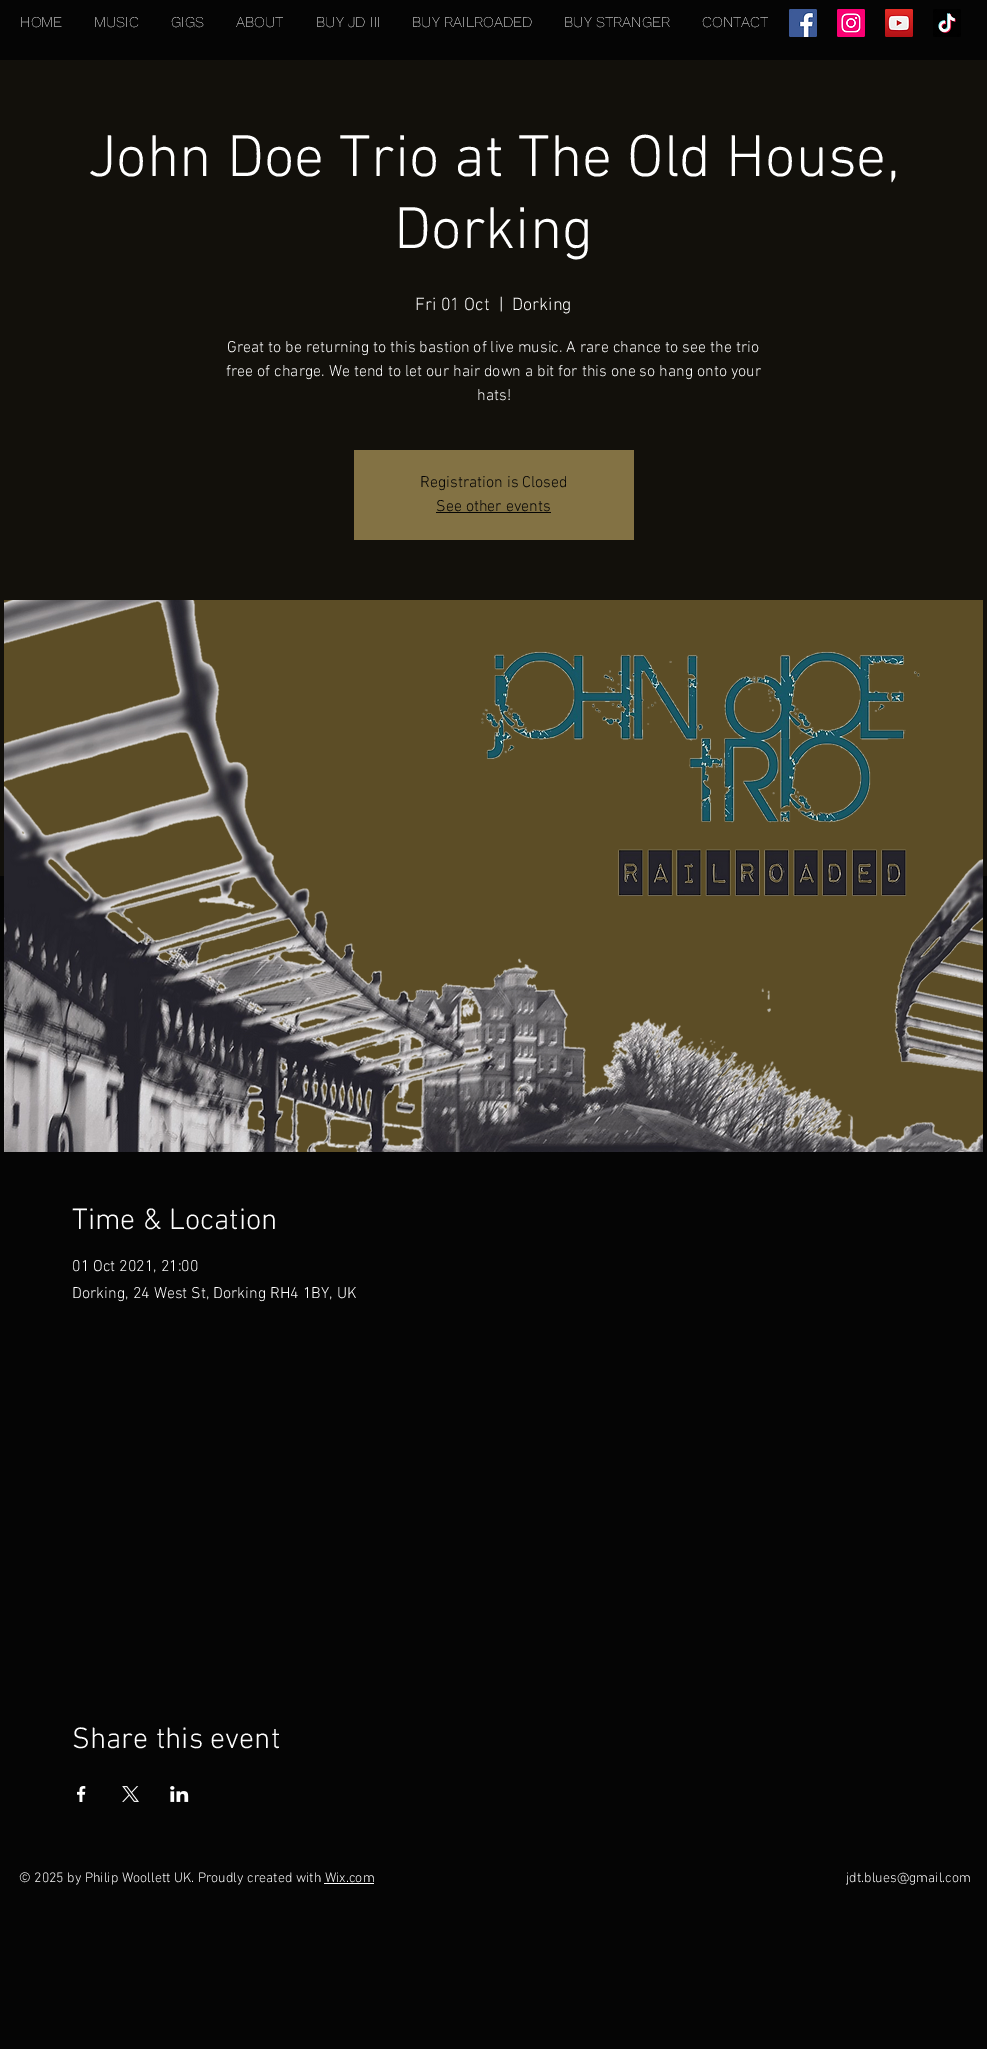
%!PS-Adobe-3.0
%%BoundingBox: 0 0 987 2049
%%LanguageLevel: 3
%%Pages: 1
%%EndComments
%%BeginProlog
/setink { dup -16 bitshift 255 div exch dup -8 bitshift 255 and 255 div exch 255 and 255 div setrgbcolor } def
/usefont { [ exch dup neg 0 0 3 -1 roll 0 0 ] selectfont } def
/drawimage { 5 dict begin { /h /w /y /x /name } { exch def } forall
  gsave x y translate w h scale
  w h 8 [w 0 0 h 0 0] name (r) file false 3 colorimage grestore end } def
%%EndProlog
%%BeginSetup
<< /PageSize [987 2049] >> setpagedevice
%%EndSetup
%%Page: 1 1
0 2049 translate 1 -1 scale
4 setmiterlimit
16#050505 setink
0 0 987 2049 rectfill
/WorkSans-ExtraLight 15 usefont
16#FFFFFF setink
[
    [(HOME) 20 27]
    [(MUSIC) 94 27]
    [(GIGS) 171 27]
    [(ABOUT) 236 27]
    [(BUY JD III) 316 27]
    [(BUY RAILROADED) 412 27]
    [(BUY STRANGER) 564 27]
    [(CONTACT) 702 27]
] { aload pop moveto show } forall
(img1.raw) 789 9 28 28 drawimage
(img2.raw) 837 9 28 28 drawimage
(img3.raw) 885 9 28 28 drawimage
(img4.raw) 933 9 28 28 drawimage
16#12100B setink
0 60 987 816 rectfill
/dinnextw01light-Light 60 usefont
16#FFFFFF setink
88 176 moveto (John Doe Trio at The Old House,) show
394 248 moveto (Dorking) show
/dinnextw01light-Light 18 usefont
[
    [(Fri 01 Oct) 415 310]
    [(|) 499 310]
    [(Dorking) 512 310]
] { aload pop moveto show } forall
/dinnextw01light-Light 16 usefont
[
    [(Great to be returning to this bastion of live music. A rare chance to see the trio) 227 352]
    [(free of charge. We tend to let our hair down a bit for this one so hang onto your) 226 376]
    [(hats!) 477 400]
] { aload pop moveto show } forall
16#837244 setink
354 450 280 90 rectfill
16#050505 setink
420 487 moveto (Registration is Closed) show
436 511 moveto (See other events) show
436 512 115 1 rectfill
16#5C4D26 setink
4 600 979 552 rectfill
(img5.raw) 4 600 979 552 drawimage
/dinnextw01light-Light 30 usefont
16#FFFFFF setink
72 1229 moveto (Time & Location) show
/dinnextw01light-Light 16 usefont
72 1271 moveto (01 Oct 2021, 21:00) show
72 1298 moveto (Dorking, 24 West St, Dorking RH4 1BY, UK) show
/dinnextw01light-Light 30 usefont
72 1748 moveto (Share this event) show
(img6.raw) 77 1786 9 16 drawimage
(img7.raw) 122 1786 17 16 drawimage
(img8.raw) 170 1786 19 16 drawimage
/dinnextw01light-Light 14 usefont
19 1882 moveto (© 2025 by Philip Woollett UK. Proudly created with Wix.com) show
324 1883 50 1 rectfill
846 1882 moveto (jdt.blues@gmail.com) show
showpage
%%EOF
